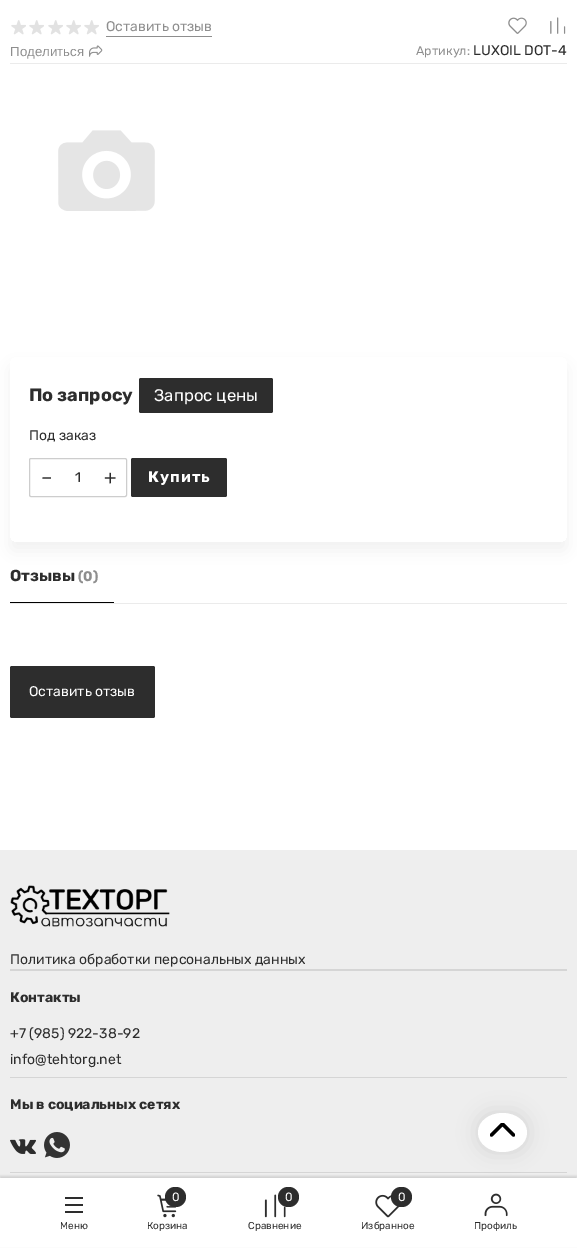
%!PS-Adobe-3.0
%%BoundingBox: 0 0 577 1248
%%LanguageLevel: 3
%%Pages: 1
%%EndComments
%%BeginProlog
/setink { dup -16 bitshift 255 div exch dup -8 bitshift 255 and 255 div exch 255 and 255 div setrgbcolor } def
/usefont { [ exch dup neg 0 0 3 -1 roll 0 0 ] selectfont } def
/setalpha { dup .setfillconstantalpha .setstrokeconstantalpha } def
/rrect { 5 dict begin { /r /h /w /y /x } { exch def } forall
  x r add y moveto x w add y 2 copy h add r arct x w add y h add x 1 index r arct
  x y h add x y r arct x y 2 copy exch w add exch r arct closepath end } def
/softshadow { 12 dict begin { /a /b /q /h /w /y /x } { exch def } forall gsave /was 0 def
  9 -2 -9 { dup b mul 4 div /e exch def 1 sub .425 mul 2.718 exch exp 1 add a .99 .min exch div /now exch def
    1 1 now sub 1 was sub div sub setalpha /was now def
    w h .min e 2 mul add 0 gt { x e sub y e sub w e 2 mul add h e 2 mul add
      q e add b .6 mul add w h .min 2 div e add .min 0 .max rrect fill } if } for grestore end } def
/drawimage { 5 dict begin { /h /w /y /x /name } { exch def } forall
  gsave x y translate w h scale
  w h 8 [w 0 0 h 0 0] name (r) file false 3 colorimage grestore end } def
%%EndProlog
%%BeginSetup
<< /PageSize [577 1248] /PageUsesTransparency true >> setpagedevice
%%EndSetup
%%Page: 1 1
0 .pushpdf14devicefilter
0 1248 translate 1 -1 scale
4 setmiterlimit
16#FFFFFF setink
0 0 577 1248 rectfill
16#EBEBEB setink
10 63 557 1 rectfill
(img1.raw) 11 20 15 15 drawimage
(img1.raw) 29 20 15 15 drawimage
(img1.raw) 48 20 15 15 drawimage
(img1.raw) 66 20 15 15 drawimage
(img1.raw) 84 20 15 15 drawimage
16#8E8E8E setink
106 36 106 1 rectfill
/Rubik-Regular 14 usefont
106 31 moveto (Оставить отзыв) show
(img2.raw) 508 17 19 17 drawimage
(img3.raw) 550 17 16 17 drawimage
/LiberationSans-Regular 13.25 usefont
10 56 moveto (Поделиться) show
(img4.raw) 89 45 14 12 drawimage
/Rubik-Regular 12.5 usefont
416 55 moveto (Артикул:) show
/Rubik-Regular 14 usefont
16#2D2D2D setink
473 55 moveto (LUXOIL DOT-4) show
(img5.raw) 58 130 97 81 drawimage
gsave
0 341 moveto 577 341 lineto 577 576 lineto 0 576 lineto closepath 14 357 moveto 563 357 lineto 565 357 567 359 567 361 curveto 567 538 lineto 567 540 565 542 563 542 curveto 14 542 lineto 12 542 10 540 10 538 curveto 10 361 lineto 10 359 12 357 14 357 curveto closepath eoclip newpath
16#222222 setink
10 366 557 185 4 8 0.06 softshadow
grestore
/Rubik-Bold 18 usefont
29 401 moveto (По запросу) show
139 378 134 35 2 rrect fill
/Rubik-Regular 16.75 usefont
16#FFFFFF setink
154 401 moveto (Запрос цены) show
/Rubik-Regular 14 usefont
16#2D2D2D setink
29 440 moveto (Под заказ) show
16#CDCDCD setink
29.5 458.5 97 38 1.5 rrect stroke
/Rubik-Regular 20 usefont
16#2D2D2D setink
41 484 moveto (–) show
/Rubik-Regular 14 usefont
75 482 moveto (1) show
/Rubik-Regular 20 usefont
104 484 moveto (+) show
131 458 96 39 2 rrect fill
/Rubik-Bold 15.5 usefont
16#FFFFFF setink
148 482 moveto 1 0 (Купить) ashow
16#EBEBEB setink
10 603 557 1 rectfill
16#000000 setink
10 602 104 1 rectfill
/Rubik-Bold 16 usefont
16#2D2D2D setink
10 581 moveto (Отзывы) show
/Rubik-Bold 14 usefont
16#8E8E8E setink
78 581 moveto (\(0\)) show
16#2D2D2D setink
10 666 145 52 2 rrect fill
/Rubik-Regular 14 usefont
16#FFFFFF setink
29 696 moveto (Оставить отзыв) show
16#EEEEEE setink
0 850 577 328 rectfill
16#D5D5D5 setink
10 969 557 2 rectfill
(img6.raw) 10 885 160 42 drawimage
16#2D2D2D setink
10 964 moveto (Политика обработки персональных данных) show
16#D5D5D5 setink
10 1172 557 1 rectfill
10 1077 557 1 rectfill
/Rubik-Bold 14 usefont
16#2D2D2D setink
10 1002 moveto (Контакты) show
/Rubik-Regular 14 usefont
10 1038 moveto (+7 \(985\) 922-38-92) show
10 1064 moveto (info@tehtorg.net) show
/Rubik-Bold 14 usefont
10 1109 moveto (Мы в социальных сетях) show
(img7.raw) 10 1139 26 15 drawimage
(img8.raw) 44 1132 26 26 drawimage
16#000000 setink
478 1113 49 39 19.5 10 0.1 softshadow
16#FFFFFF setink
502.5 1113 moveto 516 1113 527 1121.5 527 1132.5 curveto 527 1143.5 516 1152 502.5 1152 curveto 489 1152 478 1143.5 478 1132.5 curveto 478 1121.5 489 1113 502.5 1113 curveto closepath fill
gsave
490 1123 25 14 rectclip
16#000000 setink
3.2 setlinewidth
1 setlinecap
491.5 1135 moveto 502 1124.5 lineto 502.5 1124.5 502.5 1124.5 503 1124.5 curveto 513.5 1135 lineto stroke
grestore
16#000000 setink
0 1176 577 70 0 1 0.12 softshadow
[
    [0 1178 577 69 16#FFFFFF]
    [65 1197 18 2 16#2D2D2D]
    [65 1204 18 2 16#2D2D2D]
    [65 1211 18 2 16#2D2D2D]
] { aload pop setink rectfill } forall
/Rubik-Regular 10 usefont
60 1229 moveto (Меню) show
(img9.raw) 157 1194 20 24 drawimage
165 1187 21 20 10 rrect fill
/Rubik-Regular 12 usefont
16#FFFFFF setink
172 1201 moveto (0) show
/Rubik-Regular 10 usefont
16#2D2D2D setink
147 1229 moveto (Корзина) show
(img10.raw) 264 1194 22 24 drawimage
278 1187 21 20 10 rrect fill
/Rubik-Regular 12 usefont
16#FFFFFF setink
285 1201 moveto (0) show
/Rubik-Regular 10 usefont
16#2D2D2D setink
248 1229 moveto (Сравнение) show
(img11.raw) 375 1194 25 24 drawimage
391 1187 21 20 10 rrect fill
/Rubik-Regular 12 usefont
16#FFFFFF setink
398 1201 moveto (0) show
/Rubik-Regular 10 usefont
16#2D2D2D setink
361 1229 moveto (Избранное) show
(img12.raw) 484 1193 24 24 drawimage
474 1229 moveto (Профиль) show
.poppdf14devicefilter showpage
%%EOF
